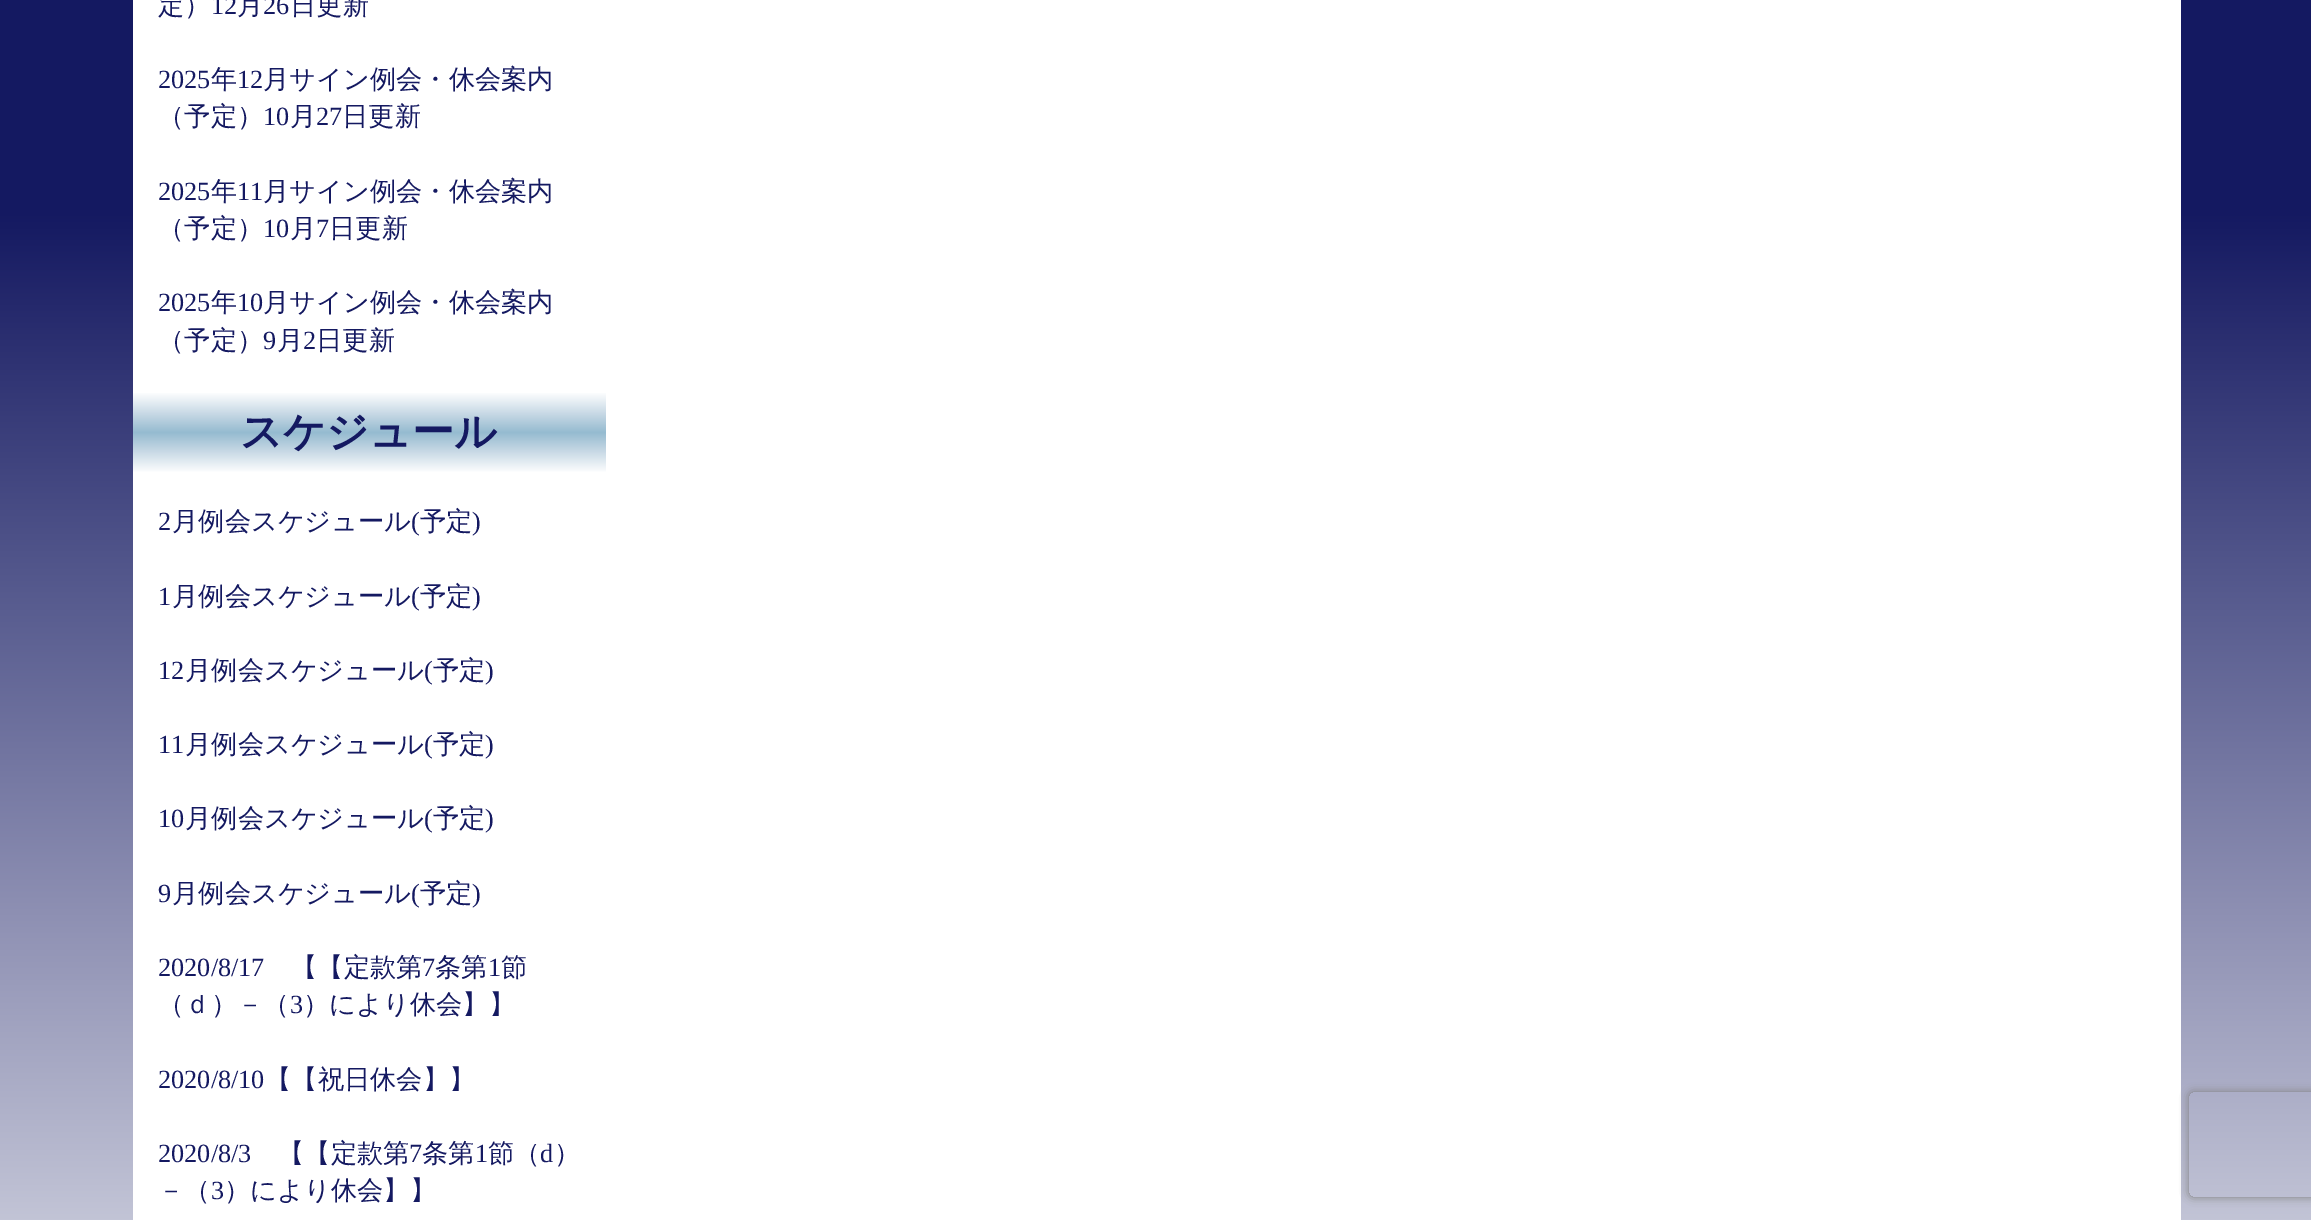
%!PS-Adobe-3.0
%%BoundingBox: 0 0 2311 1220
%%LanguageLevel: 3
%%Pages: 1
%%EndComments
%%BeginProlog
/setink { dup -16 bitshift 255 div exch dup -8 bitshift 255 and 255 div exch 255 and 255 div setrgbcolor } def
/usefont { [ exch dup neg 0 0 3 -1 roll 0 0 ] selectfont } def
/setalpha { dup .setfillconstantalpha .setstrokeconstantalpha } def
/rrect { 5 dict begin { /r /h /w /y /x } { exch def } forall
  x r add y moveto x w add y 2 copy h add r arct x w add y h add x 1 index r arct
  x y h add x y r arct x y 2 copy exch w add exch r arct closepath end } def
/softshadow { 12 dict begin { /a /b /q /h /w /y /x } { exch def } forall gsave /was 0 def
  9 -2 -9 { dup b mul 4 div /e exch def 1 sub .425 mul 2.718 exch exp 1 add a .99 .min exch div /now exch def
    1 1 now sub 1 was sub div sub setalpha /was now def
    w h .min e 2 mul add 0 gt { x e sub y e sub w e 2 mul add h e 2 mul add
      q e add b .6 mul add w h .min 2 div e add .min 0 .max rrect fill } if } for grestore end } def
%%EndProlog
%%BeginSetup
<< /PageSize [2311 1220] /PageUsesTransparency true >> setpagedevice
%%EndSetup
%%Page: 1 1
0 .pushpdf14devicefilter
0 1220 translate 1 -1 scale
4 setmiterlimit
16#FFFFFF setink
0 0 2311 1220 rectfill
gsave 0 0 moveto 2311 0 lineto 2311 1220 lineto 0 1220 lineto closepath clip newpath
<< /ShadingType 2 /ColorSpace /DeviceRGB /Coords [1156 -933 1156 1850] /Extend [true true] /Function << /FunctionType 3 /Domain [0 1] /Functions [<< /FunctionType 2 /Domain [0 1] /C0 [0.078 0.098 0.38] /C1 [0.078 0.098 0.38] /N 1 >> << /FunctionType 2 /Domain [0 1] /C0 [0.078 0.098 0.38] /C1 [1 1 1] /N 1 >> << /FunctionType 2 /Domain [0 1] /C0 [1 1 1] /C1 [1 1 1] /N 1 >>] /Bounds [0.41 0.9] /Encode [0 1 0 1 0 1] >> >> shfill grestore
133 0 2048 1220 rectfill
/WenQuanYiZenHei-Medium 26.25 usefont
16#141961 setink
158 14 moveto (定）) show
/LiberationSerif-Regular 26.25 usefont
211 14 moveto (12) show
/WenQuanYiZenHei-Medium 26.25 usefont
237 14 moveto (月) show
/LiberationSerif-Regular 26.25 usefont
263 14 moveto (26) show
/WenQuanYiZenHei-Medium 26.25 usefont
290 14 moveto (日更新) show
/LiberationSerif-Regular 26.25 usefont
158 88 moveto (2025) show
/WenQuanYiZenHei-Medium 26.25 usefont
211 88 moveto (年) show
/LiberationSerif-Regular 26.25 usefont
237 88 moveto (12) show
/WenQuanYiZenHei-Medium 26.25 usefont
263 88 moveto (月サイン例会・休会案内) show
158 125 moveto (（予定）) show
/LiberationSerif-Regular 26.25 usefont
263 125 moveto (10) show
/WenQuanYiZenHei-Medium 26.25 usefont
290 125 moveto (月) show
/LiberationSerif-Regular 26.25 usefont
316 125 moveto (27) show
/WenQuanYiZenHei-Medium 26.25 usefont
342 125 moveto (日更新) show
/LiberationSerif-Regular 26.25 usefont
158 200 moveto (2025) show
/WenQuanYiZenHei-Medium 26.25 usefont
211 200 moveto (年) show
/LiberationSerif-Regular 26.25 usefont
237 200 moveto (11) show
/WenQuanYiZenHei-Medium 26.25 usefont
263 200 moveto (月サイン例会・休会案内) show
158 237 moveto (（予定）) show
/LiberationSerif-Regular 26.25 usefont
263 237 moveto (10) show
/WenQuanYiZenHei-Medium 26.25 usefont
290 237 moveto (月) show
/LiberationSerif-Regular 26.25 usefont
316 237 moveto (7) show
/WenQuanYiZenHei-Medium 26.25 usefont
329 237 moveto (日更新) show
/LiberationSerif-Regular 26.25 usefont
158 311 moveto (2025) show
/WenQuanYiZenHei-Medium 26.25 usefont
211 311 moveto (年) show
/LiberationSerif-Regular 26.25 usefont
237 311 moveto (10) show
/WenQuanYiZenHei-Medium 26.25 usefont
263 311 moveto (月サイン例会・休会案内) show
158 349 moveto (（予定）) show
/LiberationSerif-Regular 26.25 usefont
263 349 moveto (9) show
/WenQuanYiZenHei-Medium 26.25 usefont
277 349 moveto (月) show
/LiberationSerif-Regular 26.25 usefont
303 349 moveto (2) show
/WenQuanYiZenHei-Medium 26.25 usefont
316 349 moveto (日更新) show
gsave 133 393 moveto 606 393 lineto 606 472 lineto 133 472 lineto closepath clip newpath
<< /ShadingType 2 /ColorSpace /DeviceRGB /Coords [369 392 369 473] /Extend [true true] /Function << /FunctionType 3 /Domain [0 1] /Functions [<< /FunctionType 2 /Domain [0 1] /C0 [1 1 1] /C1 [0.796 0.859 0.906] /N 1 >> << /FunctionType 2 /Domain [0 1] /C0 [0.796 0.859 0.906] /C1 [0.584 0.733 0.816] /N 1 >> << /FunctionType 2 /Domain [0 1] /C0 [0.584 0.733 0.816] /C1 [0.796 0.859 0.906] /N 1 >> << /FunctionType 2 /Domain [0 1] /C0 [0.796 0.859 0.906] /C1 [1 1 1] /N 1 >>] /Bounds [0.25 0.5 0.75] /Encode [0 1 0 1 0 1 0 1] >> >> shfill grestore
/WenQuanYiZenHei-Bold 42 usefont
240 446 moveto (スケジュール) show
/LiberationSerif-Regular 26.25 usefont
158 530 moveto (2) show
/WenQuanYiZenHei-Medium 26.25 usefont
172 530 moveto (月例会スケジュール) show
/LiberationSerif-Regular 26.25 usefont
411 530 moveto (\() show
/WenQuanYiZenHei-Medium 26.25 usefont
420 530 moveto (予定) show
/LiberationSerif-Regular 26.25 usefont
472 530 moveto (\)) show
158 605 moveto (1) show
/WenQuanYiZenHei-Medium 26.25 usefont
172 605 moveto (月例会スケジュール) show
/LiberationSerif-Regular 26.25 usefont
411 605 moveto (\() show
/WenQuanYiZenHei-Medium 26.25 usefont
420 605 moveto (予定) show
/LiberationSerif-Regular 26.25 usefont
472 605 moveto (\)) show
158 679 moveto (12) show
/WenQuanYiZenHei-Medium 26.25 usefont
185 679 moveto (月例会スケジュール) show
/LiberationSerif-Regular 26.25 usefont
424 679 moveto (\() show
/WenQuanYiZenHei-Medium 26.25 usefont
433 679 moveto (予定) show
/LiberationSerif-Regular 26.25 usefont
485 679 moveto (\)) show
158 753 moveto (11) show
/WenQuanYiZenHei-Medium 26.25 usefont
185 753 moveto (月例会スケジュール) show
/LiberationSerif-Regular 26.25 usefont
424 753 moveto (\() show
/WenQuanYiZenHei-Medium 26.25 usefont
433 753 moveto (予定) show
/LiberationSerif-Regular 26.25 usefont
485 753 moveto (\)) show
158 827 moveto (10) show
/WenQuanYiZenHei-Medium 26.25 usefont
185 827 moveto (月例会スケジュール) show
/LiberationSerif-Regular 26.25 usefont
424 827 moveto (\() show
/WenQuanYiZenHei-Medium 26.25 usefont
433 827 moveto (予定) show
/LiberationSerif-Regular 26.25 usefont
485 827 moveto (\)) show
158 902 moveto (9) show
/WenQuanYiZenHei-Medium 26.25 usefont
172 902 moveto (月例会スケジュール) show
/LiberationSerif-Regular 26.25 usefont
411 902 moveto (\() show
/WenQuanYiZenHei-Medium 26.25 usefont
420 902 moveto (予定) show
/LiberationSerif-Regular 26.25 usefont
472 902 moveto (\)) show
158 976 moveto (2020/8/17) show
/WenQuanYiZenHei-Medium 26.25 usefont
291 976 moveto (【【定款第) show
/LiberationSerif-Regular 26.25 usefont
422 976 moveto (7) show
/WenQuanYiZenHei-Medium 26.25 usefont
435 976 moveto (条第) show
/LiberationSerif-Regular 26.25 usefont
488 976 moveto (1) show
/WenQuanYiZenHei-Medium 26.25 usefont
501 976 moveto (節) show
158 1013 moveto (（ｄ）－（) show
/LiberationSerif-Regular 26.25 usefont
290 1013 moveto (3) show
/WenQuanYiZenHei-Medium 26.25 usefont
303 1013 moveto (）により休会】】) show
/LiberationSerif-Regular 26.25 usefont
158 1088 moveto (2020/8/10) show
/WenQuanYiZenHei-Medium 26.25 usefont
265 1088 moveto (【【祝日休会】】) show
/LiberationSerif-Regular 26.25 usefont
158 1162 moveto (2020/8/3) show
/WenQuanYiZenHei-Medium 26.25 usefont
278 1162 moveto (【【定款第) show
/LiberationSerif-Regular 26.25 usefont
409 1162 moveto (7) show
/WenQuanYiZenHei-Medium 26.25 usefont
422 1162 moveto (条第) show
/LiberationSerif-Regular 26.25 usefont
475 1162 moveto (1) show
/WenQuanYiZenHei-Medium 26.25 usefont
488 1162 moveto (節（) show
/LiberationSerif-Regular 26.25 usefont
540 1162 moveto (d) show
/WenQuanYiZenHei-Medium 26.25 usefont
554 1162 moveto (）) show
158 1199 moveto (－（) show
/LiberationSerif-Regular 26.25 usefont
211 1199 moveto (3) show
/WenQuanYiZenHei-Medium 26.25 usefont
224 1199 moveto (）により休会】】) show
gsave
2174 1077 moveto 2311 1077 lineto 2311 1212 lineto 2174 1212 lineto closepath 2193 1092 moveto 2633 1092 lineto 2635 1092 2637 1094 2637 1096 curveto 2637 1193 lineto 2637 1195 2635 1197 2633 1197 curveto 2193 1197 lineto 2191 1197 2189 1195 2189 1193 curveto 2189 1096 lineto 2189 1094 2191 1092 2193 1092 curveto closepath eoclip newpath
16#808080 setink
2189 1092 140 105 4 4.5 1 softshadow
grestore
.poppdf14devicefilter showpage
%%EOF
